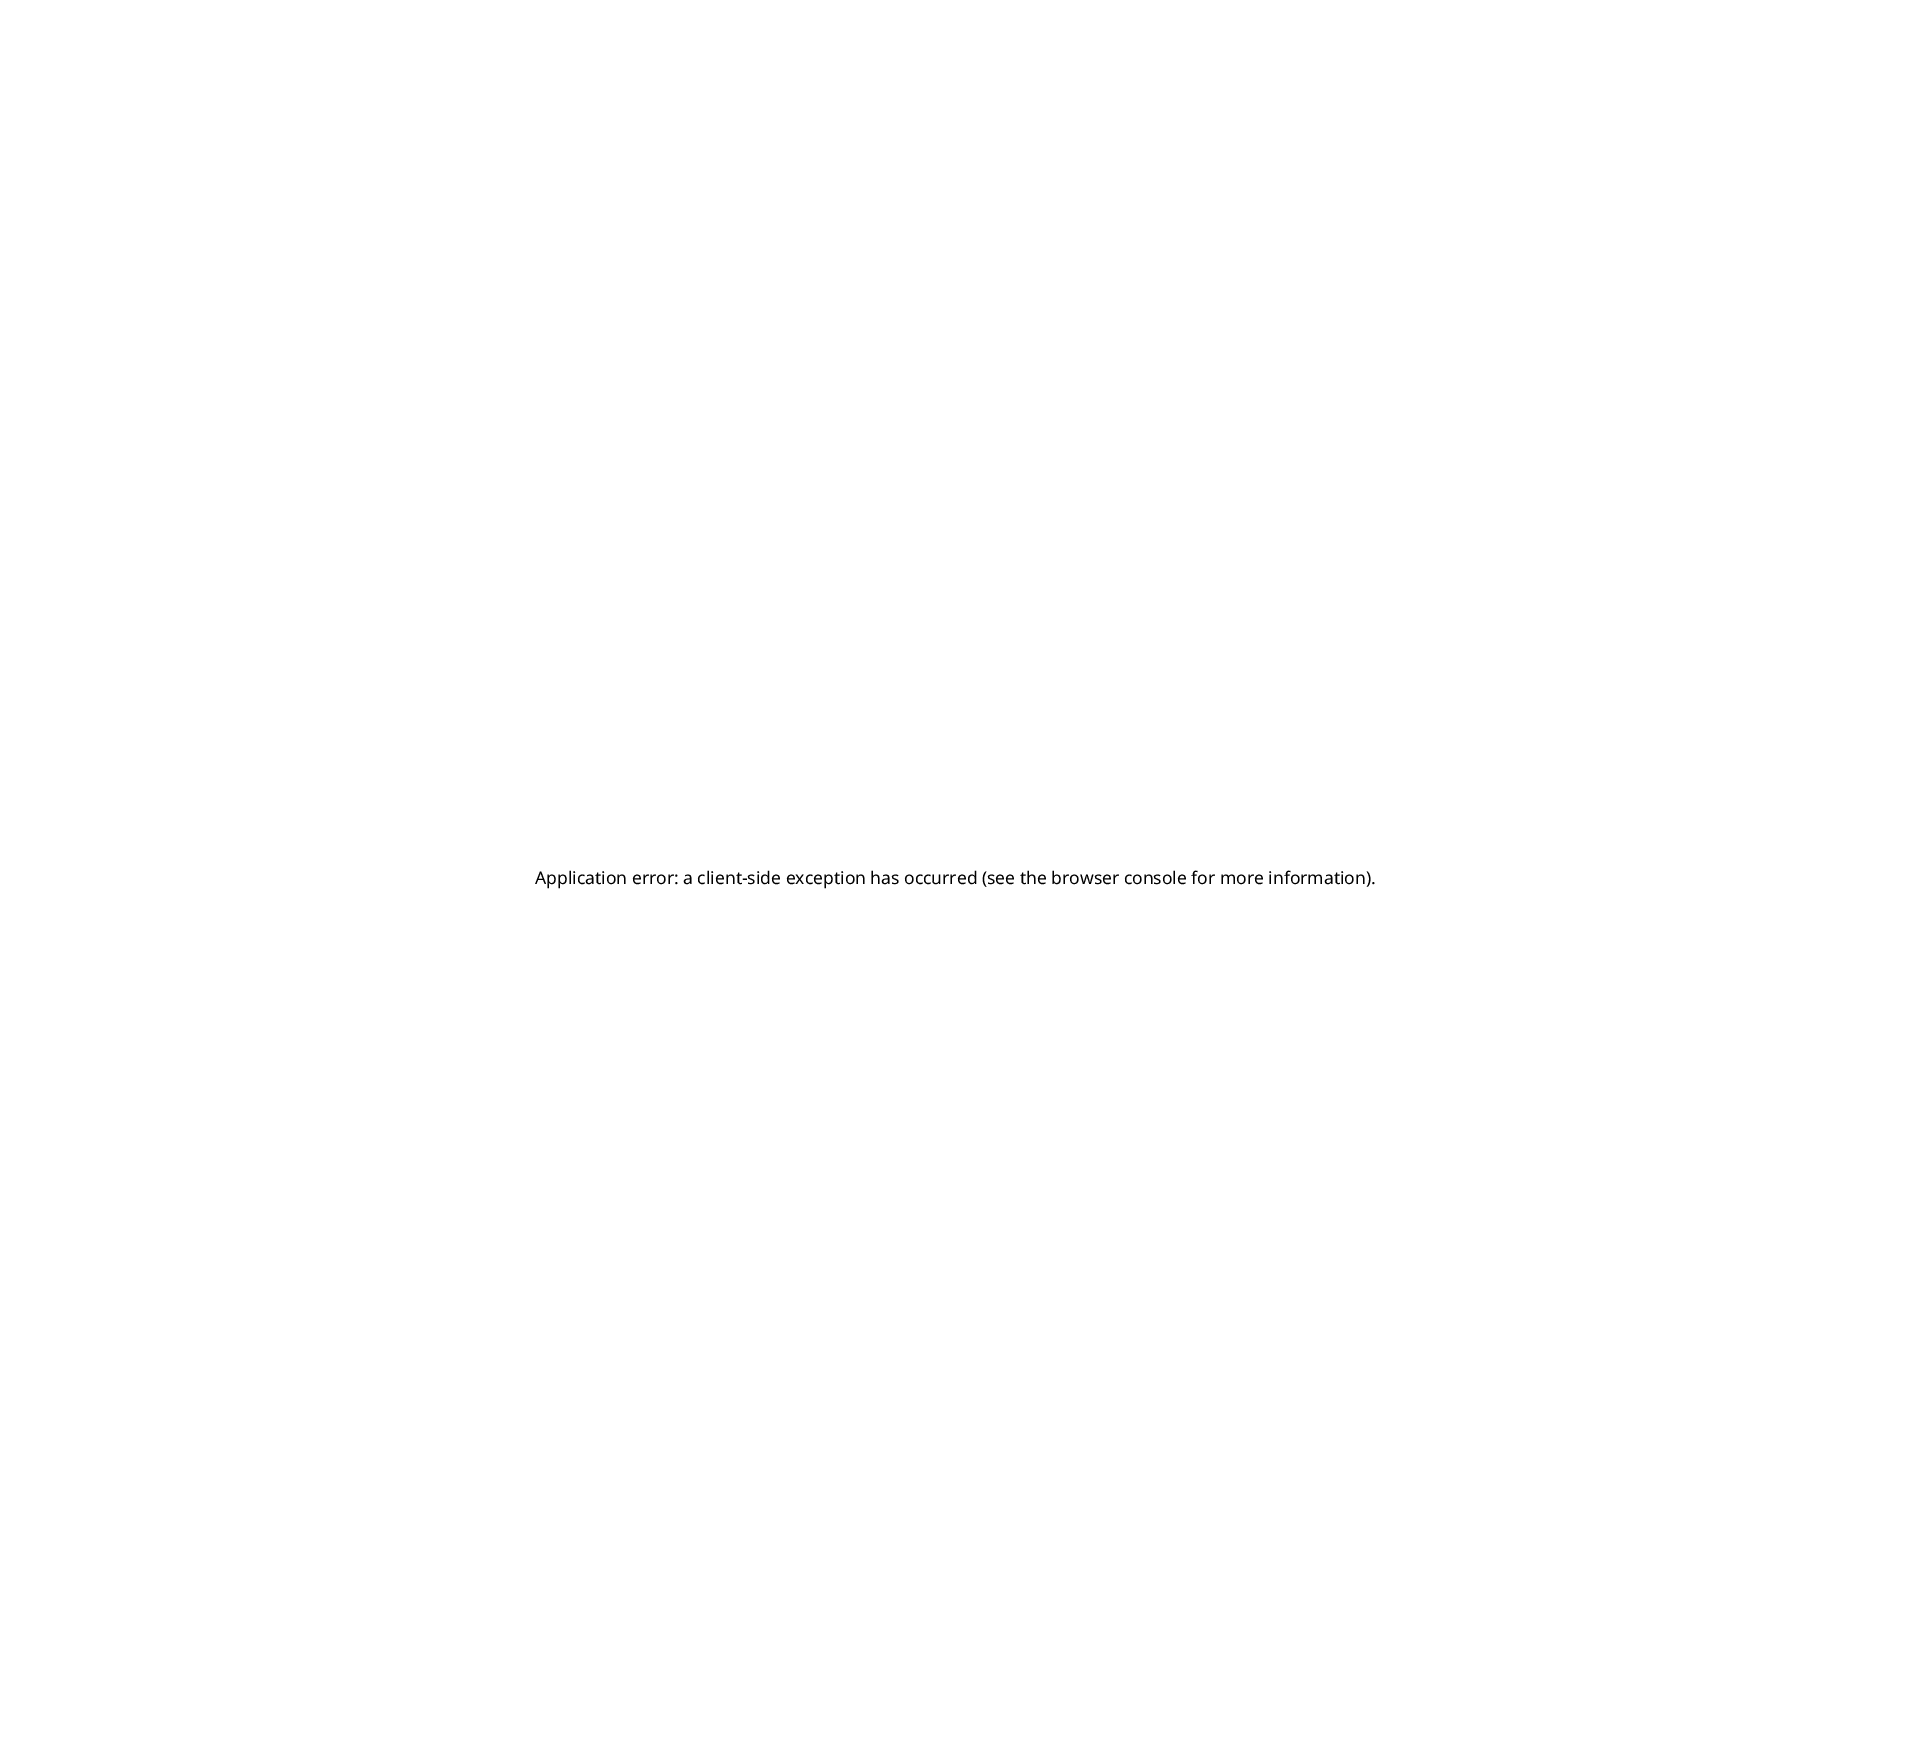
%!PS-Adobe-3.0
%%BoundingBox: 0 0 1911 1756
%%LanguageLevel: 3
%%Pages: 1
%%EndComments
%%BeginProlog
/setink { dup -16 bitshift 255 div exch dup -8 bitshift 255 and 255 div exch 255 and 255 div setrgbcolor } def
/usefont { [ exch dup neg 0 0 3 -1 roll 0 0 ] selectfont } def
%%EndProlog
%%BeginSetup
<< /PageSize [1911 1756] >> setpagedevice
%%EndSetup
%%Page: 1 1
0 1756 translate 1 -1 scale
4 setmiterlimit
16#FFFFFF setink
0 0 1911 1756 rectfill
/NotoSans-Regular 17.5 usefont
16#000000 setink
535 884 moveto (Application error: a client-side exception has occurred \(see the browser console for more information\).) show
showpage
%%EOF
